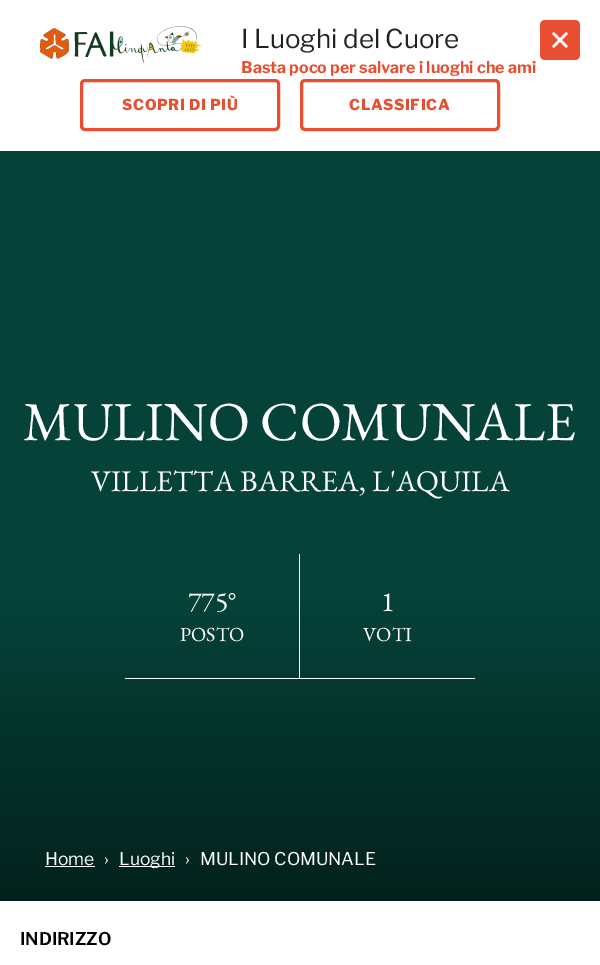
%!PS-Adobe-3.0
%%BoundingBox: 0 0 600 965
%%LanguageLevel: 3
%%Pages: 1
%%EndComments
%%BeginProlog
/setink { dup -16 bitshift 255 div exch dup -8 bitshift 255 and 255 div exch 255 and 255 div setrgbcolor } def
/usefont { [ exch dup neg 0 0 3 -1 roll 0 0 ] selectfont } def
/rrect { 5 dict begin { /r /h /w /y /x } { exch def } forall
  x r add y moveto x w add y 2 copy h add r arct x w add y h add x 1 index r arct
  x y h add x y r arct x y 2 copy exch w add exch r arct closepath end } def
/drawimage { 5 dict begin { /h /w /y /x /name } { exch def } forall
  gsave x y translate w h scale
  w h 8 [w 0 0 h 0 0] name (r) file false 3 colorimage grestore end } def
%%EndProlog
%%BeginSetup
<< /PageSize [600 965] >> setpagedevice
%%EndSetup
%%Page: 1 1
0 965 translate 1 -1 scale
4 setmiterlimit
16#FFFFFF setink
0 0 600 965 rectfill
(img1.raw) 40 26 163 38 drawimage
/LibreFranklin-Regular 26 usefont
16#222222 setink
241 48 moveto (I Luoghi del Cuore) show
/LibreFranklin-Bold 16 usefont
16#E74F30 setink
241 73 moveto (Basta poco per salvare i luoghi che ami) show
3 setlinewidth
81.5 80.5 197 49 3.5 rrect stroke
/LibreFranklin-ExtraBold 15 usefont
122 110 moveto 0.6 0 (SCOPRI DI PIÙ) ashow
301.5 80.5 197 49 3.5 rrect stroke
349 110 moveto 0.6 0 (CLASSIFICA) ashow
540 20 40 40 5 rrect fill
(img2.raw) 552 32 16 16 drawimage
16#054238 setink
0 151 600 450 rectfill
/EBGaramond-Regular 55 usefont
16#FFFFFF setink
23 440 moveto (MULINO COMUNALE) show
/EBGaramond-Regular 30 usefont
91 491 moveto (VILLETTA BARREA, L'AQUILA) show
gsave 0 601 moveto 600 601 lineto 600 901 lineto 0 901 lineto closepath clip newpath
<< /ShadingType 2 /ColorSpace /DeviceRGB /Coords [300 601 300 901] /Extend [true true] /Function << /FunctionType 2 /Domain [0 1] /C0 [0.02 0.259 0.22] /C1 [0.012 0.129 0.11] /N 1 >> >> shfill grestore
125 678 350 1 rectfill
299 554 1 124 rectfill
/EBGaramond-Regular 28 usefont
188 611 moveto (775°) show
/EBGaramond-Regular 20 usefont
180 641 moveto (POSTO) show
/EBGaramond-Regular 28 usefont
381 611 moveto (1) show
/EBGaramond-Regular 20 usefont
363 641 moveto (VOTI) show
/LibreFranklin-Regular 17.5 usefont
45 865 moveto (Home) show
45 866 50 1 rectfill
104 865 moveto (›) show
119 866 56 1 rectfill
[
    [(Luoghi) 119 865]
    [(›) 185 865]
    [(MULINO COMUNALE) 200 865]
] { aload pop moveto show } forall
/LibreFranklin-SemiBold 17.5 usefont
16#000000 setink
20 945 moveto (INDIRIZZO) show
showpage
%%EOF
